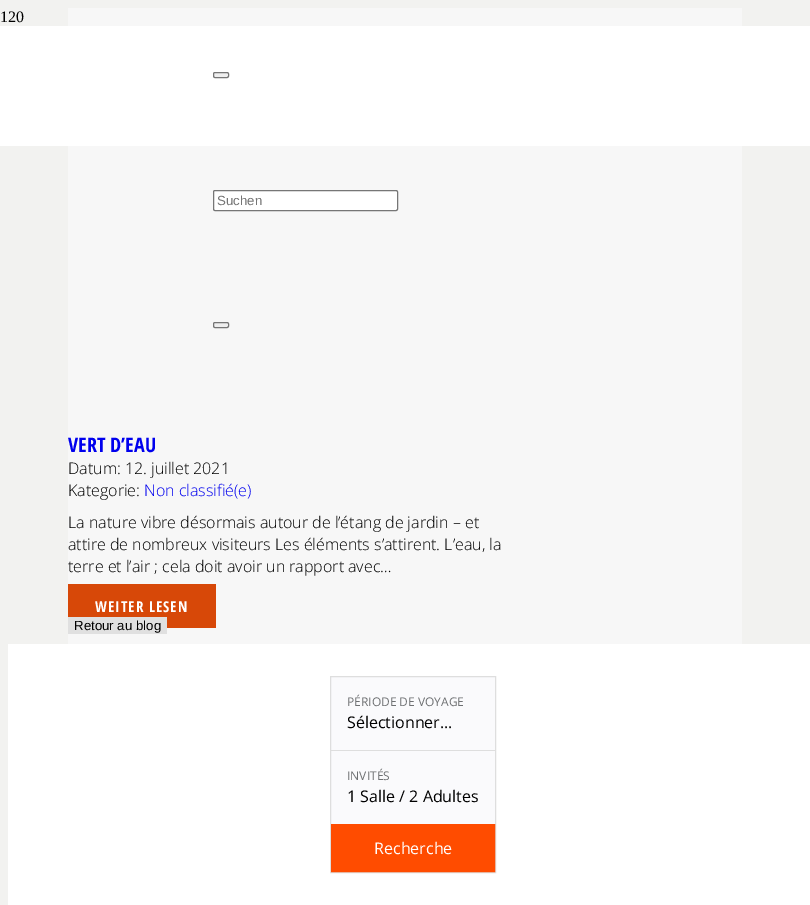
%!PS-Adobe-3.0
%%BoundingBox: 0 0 810 905
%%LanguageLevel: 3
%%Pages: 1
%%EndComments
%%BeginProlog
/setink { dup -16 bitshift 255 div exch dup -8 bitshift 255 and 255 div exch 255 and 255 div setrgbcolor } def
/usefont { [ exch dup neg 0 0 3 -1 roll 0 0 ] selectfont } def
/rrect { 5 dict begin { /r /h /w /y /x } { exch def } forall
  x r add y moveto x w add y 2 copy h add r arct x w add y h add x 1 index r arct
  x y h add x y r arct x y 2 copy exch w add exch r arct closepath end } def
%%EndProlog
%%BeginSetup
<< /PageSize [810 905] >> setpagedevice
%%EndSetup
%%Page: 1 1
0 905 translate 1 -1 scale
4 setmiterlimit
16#F2F2F0 setink
0 0 810 905 rectfill
/LiberationSerif-Regular 16 usefont
16#000000 setink
0 22 moveto (120) show
16#F7F7F7 setink
68 8 674 636 rectfill
16#FFFFFF setink
0 26 810 120 rectfill
16#EFEFEF setink
213.5 72.5 15 5 1.5 rrect gsave fill grestore
16#767676 setink
stroke
16#FFFFFF setink
213.5 190.5 184 20 1.5 rrect gsave fill grestore
16#767676 setink
stroke
/LiberationSans-Regular 13.25 usefont
16#757575 setink
217 205 moveto (Suchen) show
16#EFEFEF setink
213.5 322.5 15 5 1.5 rrect gsave fill grestore
16#767676 setink
stroke
/OpenSansCondensed-Bold 20 usefont
16#0000EE setink
68 452 moveto (VERT D’EAU) show
/OpenSans-Light 16 usefont
16#000000 setink
68 474 moveto (Datum: 12. juillet 2021) show
68 496 moveto (Kategorie:) show
16#0000EE setink
144 496 moveto (Non classifié\(e\)) show
16#000000 setink
[
    [(La nature vibre désormais autour de l’étang de jardin – et) 68 528]
    [(attire de nombreux visiteurs Les éléments s’attirent. L’eau, la) 68 550]
    [(terre et l’air ; cela doit avoir un rapport avec…) 68 572]
] { aload pop moveto show } forall
16#D74808 setink
68 584 148 44 rectfill
/OpenSansCondensed-Bold 15 usefont
16#FFFFFF setink
95 612 moveto 1 0 (WEITER LESEN) ashow
16#E0E0E0 setink
68 617 99 17 rectfill
/LiberationSans-Regular 13.25 usefont
16#000000 setink
74 630 moveto (Retour au blog) show
16#FFFFFF setink
8 644 802 261 rectfill
16#FAFAFC setink
331 677 164 147 rectfill
16#DEDEDE setink
330.5 676.5 165 196 rectstroke
/OpenSans-Regular 12 usefont
16#6E7072 setink
347 706 moveto (PÉRIODE DE VOYAGE) show
/OpenSans-Regular 16 usefont
16#000000 setink
347 728 moveto (Sélectionner...) show
16#DEDEDE setink
331 750 164 1 rectfill
/OpenSans-Regular 12 usefont
16#6E7072 setink
347 780 moveto (INVITÉS) show
/OpenSans-Regular 16 usefont
16#000000 setink
347 802 moveto (1 Salle / 2 Adultes) show
16#FF4C00 setink
331.5 824.5 163 47 rectstroke
332 825 162 46 rectfill
16#FFFFFF setink
374 854 moveto (Recherche) show
showpage
%%EOF
